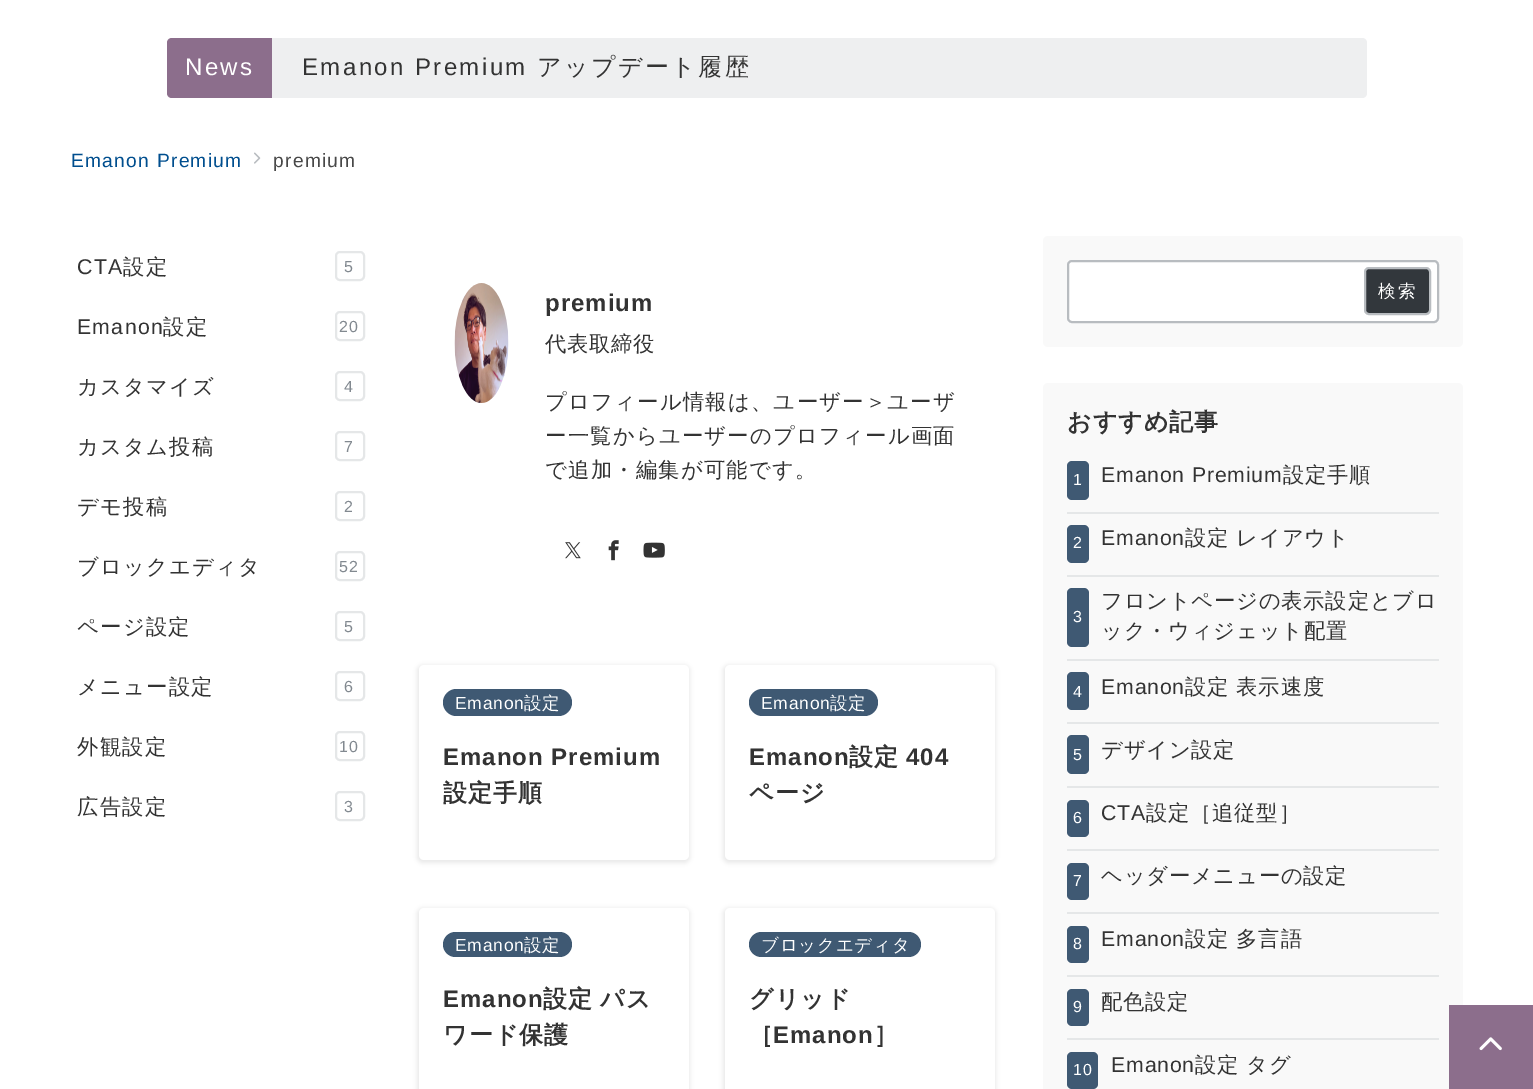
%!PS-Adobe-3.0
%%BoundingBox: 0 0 1533 1089
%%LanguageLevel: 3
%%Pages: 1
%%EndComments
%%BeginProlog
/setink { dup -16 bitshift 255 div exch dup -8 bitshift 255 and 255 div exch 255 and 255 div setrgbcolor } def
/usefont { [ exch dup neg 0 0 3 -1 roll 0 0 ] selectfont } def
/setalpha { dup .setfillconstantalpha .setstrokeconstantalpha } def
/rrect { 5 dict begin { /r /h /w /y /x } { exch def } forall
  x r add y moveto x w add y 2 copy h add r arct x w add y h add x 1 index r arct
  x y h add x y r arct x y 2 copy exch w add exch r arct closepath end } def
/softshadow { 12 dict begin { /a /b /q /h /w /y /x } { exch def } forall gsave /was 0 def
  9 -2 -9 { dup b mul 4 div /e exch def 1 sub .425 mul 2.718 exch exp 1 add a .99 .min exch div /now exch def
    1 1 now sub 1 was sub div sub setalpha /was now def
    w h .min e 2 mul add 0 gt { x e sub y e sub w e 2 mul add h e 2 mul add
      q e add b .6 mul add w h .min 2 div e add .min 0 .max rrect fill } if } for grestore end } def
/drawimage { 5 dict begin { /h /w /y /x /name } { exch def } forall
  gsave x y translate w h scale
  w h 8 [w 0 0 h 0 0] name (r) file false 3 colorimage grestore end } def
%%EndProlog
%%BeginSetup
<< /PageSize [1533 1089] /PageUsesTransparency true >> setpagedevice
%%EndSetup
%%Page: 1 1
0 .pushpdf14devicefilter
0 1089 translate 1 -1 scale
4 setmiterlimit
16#FFFFFF setink
0 0 1533 1089 rectfill
16#8C6E8C setink
172 38 moveto 272 38 lineto 272 98 lineto 172 98 lineto 169 98 167 96 167 93 curveto 167 43 lineto 167 40 169 38 172 38 curveto closepath fill
/LiberationSans-Regular 24 usefont
16#FFFFFF setink
185 75 moveto 2.4 0 (News) ashow
16#EEEFF0 setink
272 38 moveto 1362 38 lineto 1365 38 1367 40 1367 43 curveto 1367 93 lineto 1367 96 1365 98 1362 98 curveto 272 98 lineto closepath fill
16#333333 setink
302 75 moveto 2.4 0 (Emanon Premium) ashow
/WenQuanYiZenHei-Medium 24 usefont
537 75 moveto 2.4 0 (アップデート履歴) ashow
/LiberationSans-Regular 19.25 usefont
16#004E8E setink
71 167 moveto 1.25 0 (Emanon Premium) ashow
(img1.raw) 254 152 7 12 drawimage
16#484848 setink
273 167 moveto 1.25 0 (premium) ashow
/LiberationSans-Regular 21.3 usefont
16#333333 setink
77 274 moveto 1.25 0 (CTA) ashow
/WenQuanYiZenHei-Medium 21.3 usefont
123 274 moveto 1.25 0 (設定) ashow
16#E5E7E8 setink
2 setlinewidth
336 252 28 28 4 rrect stroke
/LiberationSans-Regular 16 usefont
16#828990 setink
344 272 moveto 1.25 0 (5) ashow
/LiberationSans-Regular 21.3 usefont
16#333333 setink
77 334 moveto 1.25 0 (Emanon) ashow
/WenQuanYiZenHei-Medium 21.3 usefont
163 334 moveto 1.25 0 (設定) ashow
16#E5E7E8 setink
336 312 28 28 4 rrect stroke
/LiberationSans-Regular 16 usefont
16#828990 setink
339 332 moveto 1.25 0 (20) ashow
/WenQuanYiZenHei-Medium 21.3 usefont
16#333333 setink
77 394 moveto 1.25 0 (カスタマイズ) ashow
16#E5E7E8 setink
336 372 28 28 4 rrect stroke
/LiberationSans-Regular 16 usefont
16#828990 setink
344 392 moveto 1.25 0 (4) ashow
/WenQuanYiZenHei-Medium 21.3 usefont
16#333333 setink
77 454 moveto 1.25 0 (カスタム投稿) ashow
16#E5E7E8 setink
336 432 28 28 4 rrect stroke
/LiberationSans-Regular 16 usefont
16#828990 setink
344 452 moveto 1.25 0 (7) ashow
/WenQuanYiZenHei-Medium 21.3 usefont
16#333333 setink
77 514 moveto 1.25 0 (デモ投稿) ashow
16#E5E7E8 setink
336 492 28 28 4 rrect stroke
/LiberationSans-Regular 16 usefont
16#828990 setink
344 512 moveto 1.25 0 (2) ashow
/WenQuanYiZenHei-Medium 21.3 usefont
16#333333 setink
77 574 moveto 1.25 0 (ブロックエディタ) ashow
16#E5E7E8 setink
336 552 28 28 4 rrect stroke
/LiberationSans-Regular 16 usefont
16#828990 setink
339 572 moveto 1.25 0 (52) ashow
/WenQuanYiZenHei-Medium 21.3 usefont
16#333333 setink
77 634 moveto 1.25 0 (ページ設定) ashow
16#E5E7E8 setink
336 612 28 28 4 rrect stroke
/LiberationSans-Regular 16 usefont
16#828990 setink
344 632 moveto 1.25 0 (5) ashow
/WenQuanYiZenHei-Medium 21.3 usefont
16#333333 setink
77 694 moveto 1.25 0 (メニュー設定) ashow
16#E5E7E8 setink
336 672 28 28 4 rrect stroke
/LiberationSans-Regular 16 usefont
16#828990 setink
344 692 moveto 1.25 0 (6) ashow
/WenQuanYiZenHei-Medium 21.3 usefont
16#333333 setink
77 754 moveto 1.25 0 (外観設定) ashow
16#E5E7E8 setink
336 732 28 28 4 rrect stroke
/LiberationSans-Regular 16 usefont
16#828990 setink
339 752 moveto 1.25 0 (10) ashow
/WenQuanYiZenHei-Medium 21.3 usefont
16#333333 setink
77 814 moveto 1.25 0 (広告設定) ashow
16#E5E7E8 setink
336 792 28 28 4 rrect stroke
/LiberationSans-Regular 16 usefont
16#828990 setink
344 812 moveto 1.25 0 (3) ashow
(img2.raw) 454 283 55 120 drawimage
/LiberationSans-Bold 24 usefont
16#333333 setink
545 311 moveto 1 0 (premium) ashow
/WenQuanYiZenHei-Medium 21.3 usefont
545 351 moveto 0.8 0 (代表取締役) ashow
545 409 moveto 1.25 0 (プロフィール情報は、ユーザー＞ユーザ) ashow
545 443 moveto 1.25 0 (ー一覧からユーザーのプロフィール画面) ashow
545 477 moveto 1.25 0 (で追加・編集が可能です。) ashow
(img3.raw) 565 542 16 17 drawimage
(img4.raw) 608 540 11 21 drawimage
(img5.raw) 643 542 22 16 drawimage
16#000000 setink
417 665 273 198 6 2 0.08 softshadow
16#FFFFFF setink
419 665 270 195 5 rrect fill
16#3F5973 setink
443 689 129 27 13.5 rrect fill
/LiberationSans-Regular 17.5 usefont
16#FFFFFF setink
455 709 moveto 0.75 0 (Emanon) ashow
/WenQuanYiZenHei-Medium 17.5 usefont
524 709 moveto 0.75 0 (設定) ashow
/LiberationSans-Bold 24 usefont
16#333333 setink
443 765 moveto 1 0 (Emanon Premium) ashow
/WenQuanYiZenHei-Bold 24 usefont
443 801 moveto 1 0 (設定手順) ashow
16#000000 setink
723 665 273 198 6 2 0.08 softshadow
16#FFFFFF setink
725 665 270 195 5 rrect fill
16#3F5973 setink
749 689 129 27 13.5 rrect fill
/LiberationSans-Regular 17.5 usefont
16#FFFFFF setink
761 709 moveto 0.75 0 (Emanon) ashow
/WenQuanYiZenHei-Medium 17.5 usefont
830 709 moveto 0.75 0 (設定) ashow
/LiberationSans-Bold 24 usefont
16#333333 setink
749 765 moveto 1 0 (Emanon) ashow
/WenQuanYiZenHei-Bold 24 usefont
849 765 moveto 1 0 (設定) ashow
/LiberationSans-Bold 24 usefont
906 765 moveto 1 0 (404) ashow
/WenQuanYiZenHei-Bold 24 usefont
749 801 moveto 1 0 (ページ) ashow
16#000000 setink
417 908 273 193 6 2 0.08 softshadow
16#FFFFFF setink
419 908 270 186 5 rrect fill
16#3F5973 setink
443 932 129 25 12.5 rrect fill
/LiberationSans-Regular 17.5 usefont
16#FFFFFF setink
455 951 moveto 0.75 0 (Emanon) ashow
/WenQuanYiZenHei-Medium 17.5 usefont
524 951 moveto 0.75 0 (設定) ashow
/LiberationSans-Bold 24 usefont
16#333333 setink
443 1007 moveto 1 0 (Emanon) ashow
/WenQuanYiZenHei-Bold 24 usefont
543 1007 moveto -1 0 32 1 0 (設定 パス) awidthshow
443 1043 moveto 1 0 (ワード保護) ashow
16#000000 setink
723 908 273 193 6 2 0.08 softshadow
16#FFFFFF setink
725 908 270 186 5 rrect fill
16#3F5973 setink
749 932 172 25 12.5 rrect fill
/WenQuanYiZenHei-Medium 17.5 usefont
16#FFFFFF setink
761 951 moveto 0.75 0 (ブロックエディタ) ashow
/WenQuanYiZenHei-Bold 24 usefont
16#333333 setink
749 1007 moveto 1 0 (グリッド) ashow
749 1043 moveto 1 0 (［) ashow
/LiberationSans-Bold 24 usefont
773 1043 moveto 1 0 (Emanon) ashow
/WenQuanYiZenHei-Bold 24 usefont
874 1043 moveto 1 0 (］) ashow
16#F9F9F9 setink
1043 236 420 111 5 rrect fill
16#FFFFFF setink
1068 261 370 61 4 rrect gsave fill grestore
16#B8BCC0 setink
stroke
16#32373C setink
1365 268 65 46 4 rrect gsave fill grestore
16#B8BCC0 setink
stroke
/WenQuanYiZenHei-Medium 17.5 usefont
16#FFFFFF setink
1378 297 moveto 2 0 (検索) ashow
16#F9F9F9 setink
1043 383 420 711 5 rrect fill
/WenQuanYiZenHei-Bold 24 usefont
16#333333 setink
1067 430 moveto 1 0 (おすすめ記事) ashow
16#E5E7E8 setink
1067 512 372 2 rectfill
16#3F5973 setink
1067 461 22 39 5 rrect fill
/LiberationSans-Regular 16 usefont
16#FFFFFF setink
1073 485 moveto 1.25 0 (1) ashow
/LiberationSans-Regular 21.3 usefont
16#333333 setink
1101 482 moveto 0.8 0 (Emanon Premium) ashow
/WenQuanYiZenHei-Medium 21.3 usefont
1283 482 moveto 0.8 0 (設定手順) ashow
16#E5E7E8 setink
1067 575 372 2 rectfill
16#3F5973 setink
1067 525 22 38 5 rrect fill
/LiberationSans-Regular 16 usefont
16#FFFFFF setink
1073 548 moveto 1.25 0 (2) ashow
/LiberationSans-Regular 21.3 usefont
16#333333 setink
1101 545 moveto 0.8 0 (Emanon) ashow
/WenQuanYiZenHei-Medium 21.3 usefont
1185 545 moveto 0.8 0 (設定 レイアウト) ashow
16#E5E7E8 setink
1067 659 372 2 rectfill
16#3F5973 setink
1067 588 22 59 5 rrect fill
/LiberationSans-Regular 16 usefont
16#FFFFFF setink
1073 622 moveto 1.25 0 (3) ashow
/WenQuanYiZenHei-Medium 21.3 usefont
16#333333 setink
1101 608 moveto 0.8 0 (フロントページの表示設定とブロ) ashow
1101 638 moveto 0.8 0 (ック・ウィジェット配置) ashow
16#E5E7E8 setink
1067 722 372 2 rectfill
16#3F5973 setink
1067 672 22 38 5 rrect fill
/LiberationSans-Regular 16 usefont
16#FFFFFF setink
1073 697 moveto 1.25 0 (4) ashow
/LiberationSans-Regular 21.3 usefont
16#333333 setink
1101 694 moveto 0.8 0 (Emanon) ashow
/WenQuanYiZenHei-Medium 21.3 usefont
1185 694 moveto 0.8 0 (設定 表示速度) ashow
16#E5E7E8 setink
1067 786 372 2 rectfill
16#3F5973 setink
1067 735 22 39 5 rrect fill
/LiberationSans-Regular 16 usefont
16#FFFFFF setink
1073 760 moveto 1.25 0 (5) ashow
/WenQuanYiZenHei-Medium 21.3 usefont
16#333333 setink
1101 757 moveto 0.8 0 (デザイン設定) ashow
16#E5E7E8 setink
1067 849 372 2 rectfill
16#3F5973 setink
1067 800 22 37 5 rrect fill
/LiberationSans-Regular 16 usefont
16#FFFFFF setink
1073 823 moveto 1.25 0 (6) ashow
/LiberationSans-Regular 21.3 usefont
16#333333 setink
1101 820 moveto 0.8 0 (CTA) ashow
/WenQuanYiZenHei-Medium 21.3 usefont
1146 820 moveto 0.8 0 (設定［追従型］) ashow
16#E5E7E8 setink
1067 912 372 2 rectfill
16#3F5973 setink
1067 863 22 37 5 rrect fill
/LiberationSans-Regular 16 usefont
16#FFFFFF setink
1073 886 moveto 1.25 0 (7) ashow
/WenQuanYiZenHei-Medium 21.3 usefont
16#333333 setink
1101 883 moveto 0.8 0 (ヘッダーメニューの設定) ashow
16#E5E7E8 setink
1067 975 372 2 rectfill
16#3F5973 setink
1067 926 22 37 5 rrect fill
/LiberationSans-Regular 16 usefont
16#FFFFFF setink
1073 949 moveto 1.25 0 (8) ashow
/LiberationSans-Regular 21.3 usefont
16#333333 setink
1101 946 moveto 0.8 0 (Emanon) ashow
/WenQuanYiZenHei-Medium 21.3 usefont
1185 946 moveto 0.8 0 (設定 多言語) ashow
16#E5E7E8 setink
1067 1038 372 2 rectfill
16#3F5973 setink
1067 989 22 37 5 rrect fill
/LiberationSans-Regular 16 usefont
16#FFFFFF setink
1073 1012 moveto 1.25 0 (9) ashow
/WenQuanYiZenHei-Medium 21.3 usefont
16#333333 setink
1101 1009 moveto 0.8 0 (配色設定) ashow
16#3F5973 setink
1067 1052 31 37 5 rrect fill
/LiberationSans-Regular 16 usefont
16#FFFFFF setink
1073 1075 moveto 1.25 0 (10) ashow
/LiberationSans-Regular 21.3 usefont
16#333333 setink
1111 1072 moveto 0.8 0 (Emanon) ashow
/WenQuanYiZenHei-Medium 21.3 usefont
1195 1072 moveto 0.8 0 (設定 タグ) ashow
16#8C6E8C setink
1449 1005 84 84 rectfill
(img6.raw) 1479 1037 23 14 drawimage
.poppdf14devicefilter showpage
%%EOF
